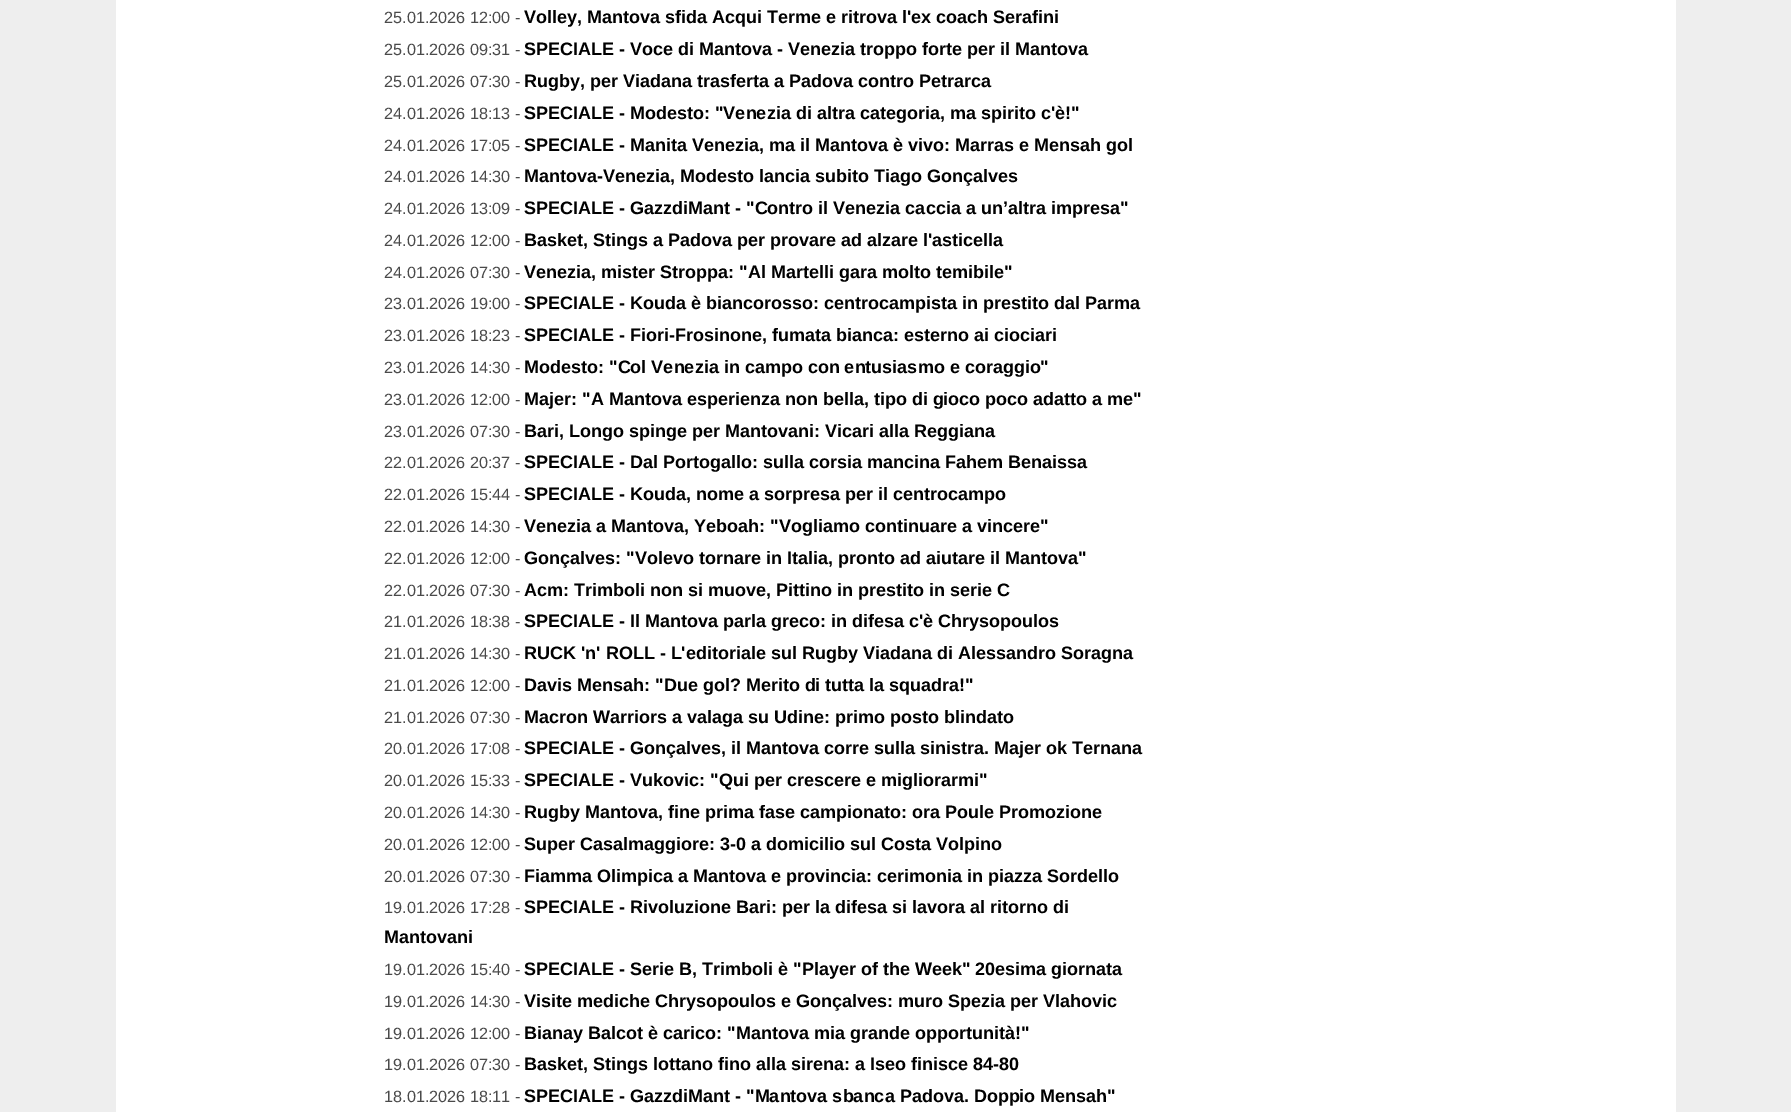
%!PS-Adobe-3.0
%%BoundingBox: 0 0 1791 1112
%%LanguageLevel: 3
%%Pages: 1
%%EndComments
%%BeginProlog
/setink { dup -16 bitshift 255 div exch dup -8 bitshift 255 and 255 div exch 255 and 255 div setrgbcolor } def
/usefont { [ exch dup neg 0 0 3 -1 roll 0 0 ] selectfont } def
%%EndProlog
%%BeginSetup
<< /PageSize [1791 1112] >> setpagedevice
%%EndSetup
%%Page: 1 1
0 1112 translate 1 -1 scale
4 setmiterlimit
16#EEEEEE setink
0 0 1791 1112 rectfill
16#FFFFFF setink
116 0 1560 1112 rectfill
/LiberationSans-Regular 16.25 usefont
16#4A4A4A setink
384 23 moveto (25.01.2026 12:00 -) show
/LiberationSans-Bold 18 usefont
16#000000 setink
524 23 moveto (Volley, Mantova sfida Acqui Terme e ritrova l'ex coach Serafini) show
/LiberationSans-Regular 16.25 usefont
16#4A4A4A setink
384 55 moveto (25.01.2026 09:31 -) show
/LiberationSans-Bold 18 usefont
16#000000 setink
524 55 moveto (SPECIALE - Voce di Mantova - Venezia troppo forte per il Mantova) show
/LiberationSans-Regular 16.25 usefont
16#4A4A4A setink
384 87 moveto (25.01.2026 07:30 -) show
/LiberationSans-Bold 18 usefont
16#000000 setink
524 87 moveto (Rugby, per Viadana trasferta a Padova contro Petrarca) show
/LiberationSans-Regular 16.25 usefont
16#4A4A4A setink
384 119 moveto (24.01.2026 18:13 -) show
/LiberationSans-Bold 18 usefont
16#000000 setink
524 119 moveto (SPECIALE - Modesto: "Venezia di altra categoria, ma spirito c'è!") show
/LiberationSans-Regular 16.25 usefont
16#4A4A4A setink
384 151 moveto (24.01.2026 17:05 -) show
/LiberationSans-Bold 18 usefont
16#000000 setink
524 151 moveto (SPECIALE - Manita Venezia, ma il Mantova è vivo: Marras e Mensah gol) show
/LiberationSans-Regular 16.25 usefont
16#4A4A4A setink
384 182 moveto (24.01.2026 14:30 -) show
/LiberationSans-Bold 18 usefont
16#000000 setink
524 182 moveto (Mantova-Venezia, Modesto lancia subito Tiago Gonçalves) show
/LiberationSans-Regular 16.25 usefont
16#4A4A4A setink
384 214 moveto (24.01.2026 13:09 -) show
/LiberationSans-Bold 18 usefont
16#000000 setink
524 214 moveto (SPECIALE - GazzdiMant - "Contro il Venezia caccia a un’altra impresa") show
/LiberationSans-Regular 16.25 usefont
16#4A4A4A setink
384 246 moveto (24.01.2026 12:00 -) show
/LiberationSans-Bold 18 usefont
16#000000 setink
524 246 moveto (Basket, Stings a Padova per provare ad alzare l'asticella) show
/LiberationSans-Regular 16.25 usefont
16#4A4A4A setink
384 278 moveto (24.01.2026 07:30 -) show
/LiberationSans-Bold 18 usefont
16#000000 setink
524 278 moveto (Venezia, mister Stroppa: "Al Martelli gara molto temibile") show
/LiberationSans-Regular 16.25 usefont
16#4A4A4A setink
384 309 moveto (23.01.2026 19:00 -) show
/LiberationSans-Bold 18 usefont
16#000000 setink
524 309 moveto (SPECIALE - Kouda è biancorosso: centrocampista in prestito dal Parma) show
/LiberationSans-Regular 16.25 usefont
16#4A4A4A setink
384 341 moveto (23.01.2026 18:23 -) show
/LiberationSans-Bold 18 usefont
16#000000 setink
524 341 moveto (SPECIALE - Fiori-Frosinone, fumata bianca: esterno ai ciociari) show
/LiberationSans-Regular 16.25 usefont
16#4A4A4A setink
384 373 moveto (23.01.2026 14:30 -) show
/LiberationSans-Bold 18 usefont
16#000000 setink
524 373 moveto (Modesto: "Col Venezia in campo con entusiasmo e coraggio") show
/LiberationSans-Regular 16.25 usefont
16#4A4A4A setink
384 405 moveto (23.01.2026 12:00 -) show
/LiberationSans-Bold 18 usefont
16#000000 setink
524 405 moveto (Majer: "A Mantova esperienza non bella, tipo di gioco poco adatto a me") show
/LiberationSans-Regular 16.25 usefont
16#4A4A4A setink
384 437 moveto (23.01.2026 07:30 -) show
/LiberationSans-Bold 18 usefont
16#000000 setink
524 437 moveto (Bari, Longo spinge per Mantovani: Vicari alla Reggiana) show
/LiberationSans-Regular 16.25 usefont
16#4A4A4A setink
384 468 moveto (22.01.2026 20:37 -) show
/LiberationSans-Bold 18 usefont
16#000000 setink
524 468 moveto (SPECIALE - Dal Portogallo: sulla corsia mancina Fahem Benaissa) show
/LiberationSans-Regular 16.25 usefont
16#4A4A4A setink
384 500 moveto (22.01.2026 15:44 -) show
/LiberationSans-Bold 18 usefont
16#000000 setink
524 500 moveto (SPECIALE - Kouda, nome a sorpresa per il centrocampo) show
/LiberationSans-Regular 16.25 usefont
16#4A4A4A setink
384 532 moveto (22.01.2026 14:30 -) show
/LiberationSans-Bold 18 usefont
16#000000 setink
524 532 moveto (Venezia a Mantova, Yeboah: "Vogliamo continuare a vincere") show
/LiberationSans-Regular 16.25 usefont
16#4A4A4A setink
384 564 moveto (22.01.2026 12:00 -) show
/LiberationSans-Bold 18 usefont
16#000000 setink
524 564 moveto (Gonçalves: "Volevo tornare in Italia, pronto ad aiutare il Mantova") show
/LiberationSans-Regular 16.25 usefont
16#4A4A4A setink
384 596 moveto (22.01.2026 07:30 -) show
/LiberationSans-Bold 18 usefont
16#000000 setink
524 596 moveto (Acm: Trimboli non si muove, Pittino in prestito in serie C) show
/LiberationSans-Regular 16.25 usefont
16#4A4A4A setink
384 627 moveto (21.01.2026 18:38 -) show
/LiberationSans-Bold 18 usefont
16#000000 setink
524 627 moveto (SPECIALE - Il Mantova parla greco: in difesa c'è Chrysopoulos) show
/LiberationSans-Regular 16.25 usefont
16#4A4A4A setink
384 659 moveto (21.01.2026 14:30 -) show
/LiberationSans-Bold 18 usefont
16#000000 setink
524 659 moveto (RUCK 'n' ROLL - L'editoriale sul Rugby Viadana di Alessandro Soragna) show
/LiberationSans-Regular 16.25 usefont
16#4A4A4A setink
384 691 moveto (21.01.2026 12:00 -) show
/LiberationSans-Bold 18 usefont
16#000000 setink
524 691 moveto (Davis Mensah: "Due gol? Merito di tutta la squadra!") show
/LiberationSans-Regular 16.25 usefont
16#4A4A4A setink
384 723 moveto (21.01.2026 07:30 -) show
/LiberationSans-Bold 18 usefont
16#000000 setink
524 723 moveto (Macron Warriors a valaga su Udine: primo posto blindato) show
/LiberationSans-Regular 16.25 usefont
16#4A4A4A setink
384 754 moveto (20.01.2026 17:08 -) show
/LiberationSans-Bold 18 usefont
16#000000 setink
524 754 moveto (SPECIALE - Gonçalves, il Mantova corre sulla sinistra. Majer ok Ternana) show
/LiberationSans-Regular 16.25 usefont
16#4A4A4A setink
384 786 moveto (20.01.2026 15:33 -) show
/LiberationSans-Bold 18 usefont
16#000000 setink
524 786 moveto (SPECIALE - Vukovic: "Qui per crescere e migliorarmi") show
/LiberationSans-Regular 16.25 usefont
16#4A4A4A setink
384 818 moveto (20.01.2026 14:30 -) show
/LiberationSans-Bold 18 usefont
16#000000 setink
524 818 moveto (Rugby Mantova, fine prima fase campionato: ora Poule Promozione) show
/LiberationSans-Regular 16.25 usefont
16#4A4A4A setink
384 850 moveto (20.01.2026 12:00 -) show
/LiberationSans-Bold 18 usefont
16#000000 setink
524 850 moveto (Super Casalmaggiore: 3-0 a domicilio sul Costa Volpino) show
/LiberationSans-Regular 16.25 usefont
16#4A4A4A setink
384 882 moveto (20.01.2026 07:30 -) show
/LiberationSans-Bold 18 usefont
16#000000 setink
524 882 moveto (Fiamma Olimpica a Mantova e provincia: cerimonia in piazza Sordello) show
/LiberationSans-Regular 16.25 usefont
16#4A4A4A setink
384 913 moveto (19.01.2026 17:28 -) show
/LiberationSans-Bold 18 usefont
16#000000 setink
524 913 moveto (SPECIALE - Rivoluzione Bari: per la difesa si lavora al ritorno di) show
384 943 moveto (Mantovani) show
/LiberationSans-Regular 16.25 usefont
16#4A4A4A setink
384 975 moveto (19.01.2026 15:40 -) show
/LiberationSans-Bold 18 usefont
16#000000 setink
524 975 moveto (SPECIALE - Serie B, Trimboli è "Player of the Week" 20esima giornata) show
/LiberationSans-Regular 16.25 usefont
16#4A4A4A setink
384 1007 moveto (19.01.2026 14:30 -) show
/LiberationSans-Bold 18 usefont
16#000000 setink
524 1007 moveto (Visite mediche Chrysopoulos e Gonçalves: muro Spezia per Vlahovic) show
/LiberationSans-Regular 16.25 usefont
16#4A4A4A setink
384 1039 moveto (19.01.2026 12:00 -) show
/LiberationSans-Bold 18 usefont
16#000000 setink
524 1039 moveto (Bianay Balcot è carico: "Mantova mia grande opportunità!") show
/LiberationSans-Regular 16.25 usefont
16#4A4A4A setink
384 1070 moveto (19.01.2026 07:30 -) show
/LiberationSans-Bold 18 usefont
16#000000 setink
524 1070 moveto (Basket, Stings lottano fino alla sirena: a Iseo finisce 84-80) show
/LiberationSans-Regular 16.25 usefont
16#4A4A4A setink
384 1102 moveto (18.01.2026 18:11 -) show
/LiberationSans-Bold 18 usefont
16#000000 setink
524 1102 moveto (SPECIALE - GazzdiMant - "Mantova sbanca Padova. Doppio Mensah") show
showpage
%%EOF
